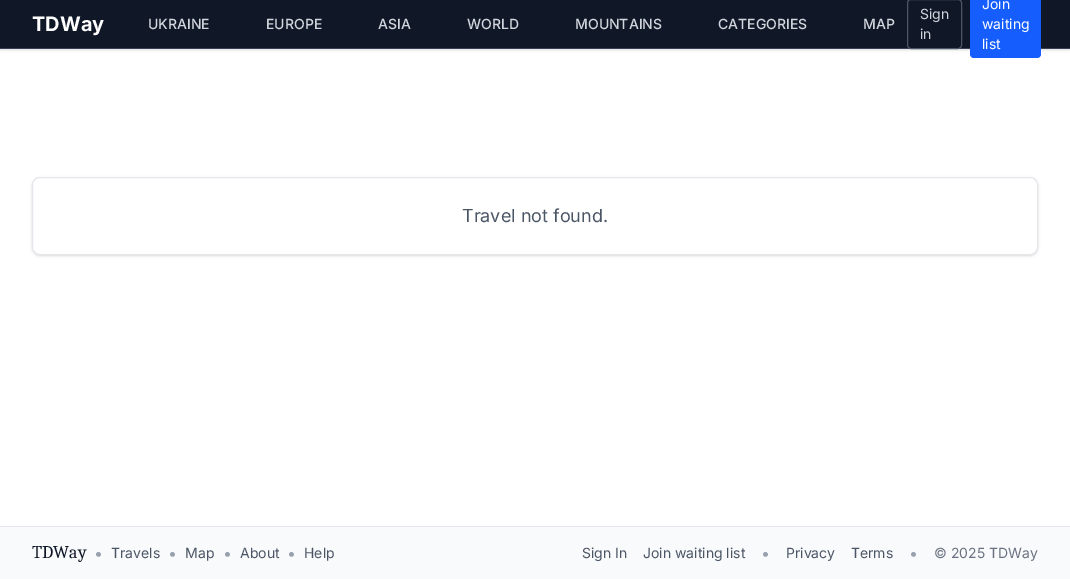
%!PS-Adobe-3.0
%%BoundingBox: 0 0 1070 579
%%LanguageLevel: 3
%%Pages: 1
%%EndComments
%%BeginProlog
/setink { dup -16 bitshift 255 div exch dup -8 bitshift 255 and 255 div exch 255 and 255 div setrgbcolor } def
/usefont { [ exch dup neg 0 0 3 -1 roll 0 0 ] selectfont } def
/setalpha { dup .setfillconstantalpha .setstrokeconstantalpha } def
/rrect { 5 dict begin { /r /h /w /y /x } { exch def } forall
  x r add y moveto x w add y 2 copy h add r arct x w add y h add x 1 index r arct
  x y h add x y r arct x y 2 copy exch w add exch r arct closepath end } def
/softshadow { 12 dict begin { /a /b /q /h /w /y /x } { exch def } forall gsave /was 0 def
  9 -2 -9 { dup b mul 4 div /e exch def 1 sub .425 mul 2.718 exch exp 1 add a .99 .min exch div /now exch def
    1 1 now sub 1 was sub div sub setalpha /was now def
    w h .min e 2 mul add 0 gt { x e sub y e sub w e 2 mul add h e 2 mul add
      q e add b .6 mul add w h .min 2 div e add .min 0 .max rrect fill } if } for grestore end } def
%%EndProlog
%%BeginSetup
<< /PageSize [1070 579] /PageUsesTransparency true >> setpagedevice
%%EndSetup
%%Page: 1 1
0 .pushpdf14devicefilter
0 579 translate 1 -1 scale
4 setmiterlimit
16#FFFFFF setink
0 0 1070 579 rectfill
16#000000 setink
1 2 1068 47 0 1 0.1 softshadow
0 1 1070 49 0 1.5 0.1 softshadow
16#101828 setink
0 0 1070 48 rectfill
16#364153 setink
0 48 1070 1 rectfill
/Inter-Bold 20 usefont
16#FFFFFF setink
32 31 moveto (TDWay) show
/Inter-Medium 14 usefont
16#D1D5DC setink
[
    [(UKRAINE) 148 29]
    [(EUROPE) 266 29]
    [(ASIA) 378 29]
    [(WORLD) 467 29]
    [(MOUNTAINS) 575 29]
    [(CATEGORIES) 718 29]
    [(MAP) 863 29]
] { aload pop moveto show } forall
16#4A5565 setink
907.5 -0.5 54 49 3.5 rrect stroke
/Inter-Regular 14 usefont
16#D1D5DC setink
920 19 moveto (Sign) show
920 39 moveto (in) show
16#155DFC setink
970 -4 71 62 4 rrect fill
16#FFFFFF setink
[
    [(Join) 982 9]
    [(waiting) 982 29]
    [(list) 982 49]
] { aload pop moveto show } forall
16#000000 setink
33 179 1004 76 7 1 0.1 softshadow
32 178 1006 78 8 1.5 0.1 softshadow
16#FFFFFF setink
32.5 177.5 1005 77 7.5 rrect gsave fill grestore
16#E5E7EB setink
stroke
/Inter-Regular 18 usefont
16#4A5565 setink
462 222 moveto (Travel not found.) show
16#F9FAFB setink
0 527 1070 52 rectfill
16#E5E7EB setink
0 526 1070 1 rectfill
/Caladea-Regular 18 usefont
16#101828 setink
32 558 moveto (TDWay) show
/Inter-Regular 16 usefont
16#99A1AF setink
94 559 moveto (•) show
/Inter-Regular 14 usefont
16#4A5565 setink
111 558 moveto (Travels) show
/Inter-Regular 16 usefont
16#99A1AF setink
168 559 moveto (•) show
/Inter-Regular 14 usefont
16#4A5565 setink
185 558 moveto (Map) show
/Inter-Regular 16 usefont
16#99A1AF setink
223 559 moveto (•) show
/Inter-Regular 14 usefont
16#4A5565 setink
240 558 moveto (About) show
/Inter-Regular 16 usefont
16#99A1AF setink
287 559 moveto (•) show
/Inter-Regular 14 usefont
16#4A5565 setink
[
    [(Help) 304 558]
    [(Sign In) 582 558]
    [(Join waiting list) 643 558]
] { aload pop moveto show } forall
/Inter-Regular 16 usefont
16#99A1AF setink
761 559 moveto (•) show
/Inter-Regular 14 usefont
16#4A5565 setink
786 558 moveto (Privacy) show
851 558 moveto (Terms) show
/Inter-Regular 16 usefont
16#99A1AF setink
909 559 moveto (•) show
/Inter-Regular 14 usefont
16#6A7282 setink
934 558 moveto (© 2025 TDWay) show
.poppdf14devicefilter showpage
%%EOF
